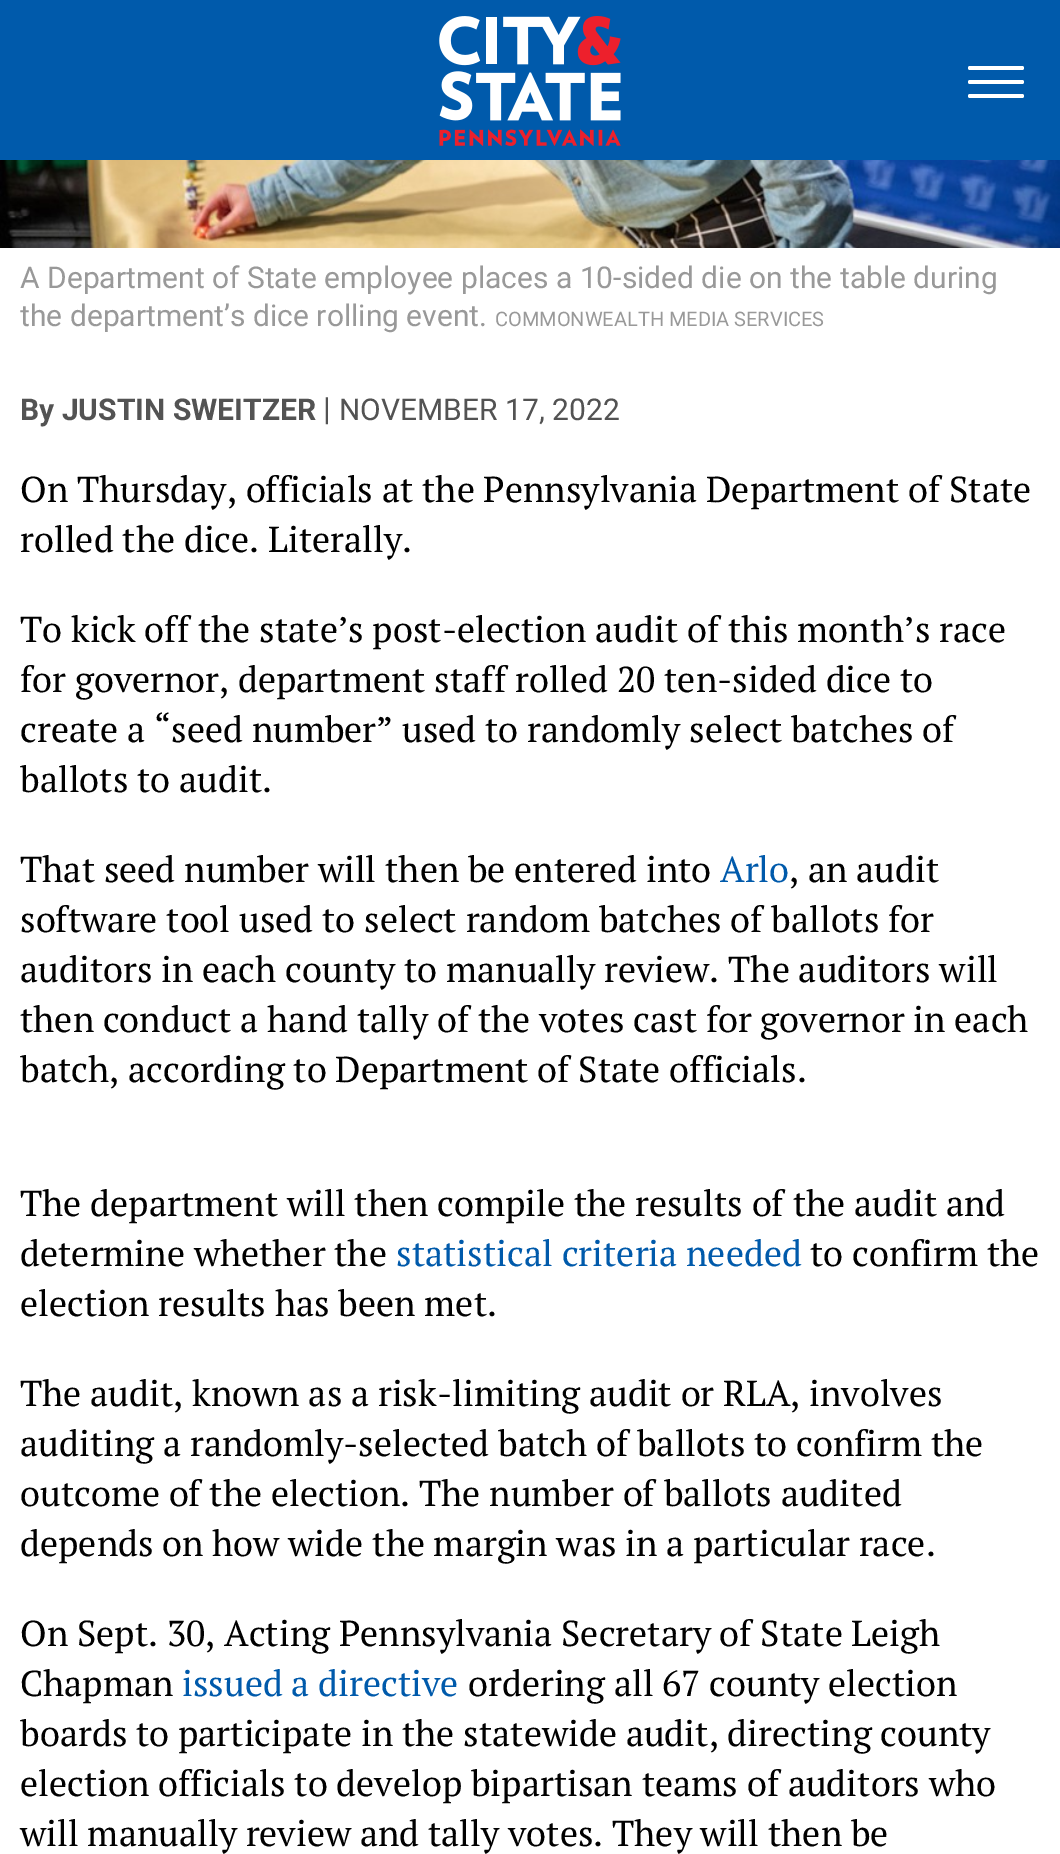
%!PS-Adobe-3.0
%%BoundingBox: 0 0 1060 1854
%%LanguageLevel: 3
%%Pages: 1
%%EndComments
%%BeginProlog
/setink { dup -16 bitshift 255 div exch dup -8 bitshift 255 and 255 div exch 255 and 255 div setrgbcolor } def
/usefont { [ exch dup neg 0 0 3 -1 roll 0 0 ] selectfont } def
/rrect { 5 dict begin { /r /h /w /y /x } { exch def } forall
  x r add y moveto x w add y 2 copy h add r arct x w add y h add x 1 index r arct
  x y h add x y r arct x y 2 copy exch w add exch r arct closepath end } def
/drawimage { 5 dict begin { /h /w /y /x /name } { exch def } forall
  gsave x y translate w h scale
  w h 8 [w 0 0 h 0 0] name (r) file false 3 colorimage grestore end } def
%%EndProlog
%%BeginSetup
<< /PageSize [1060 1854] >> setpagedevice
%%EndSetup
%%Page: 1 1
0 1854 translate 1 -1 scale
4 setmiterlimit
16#FFFFFF setink
0 0 1060 1854 rectfill
16#005AAB setink
0 0 1060 160 rectfill
(img1.raw) 439 16 182 130 drawimage
16#FFFFFF setink
968 80 56 4 2 rrect fill
968 66 56 4 2 rrect fill
968 94 56 4 2 rrect fill
(img2.raw) 0 160 1060 88 drawimage
/Roboto-Regular 30 usefont
16#999999 setink
20 288 moveto (A Department of State employee places a 10-sided die on the table during) show
20 326 moveto (the department’s dice rolling event.) show
/Roboto-Regular 20 usefont
495 326 moveto (COMMONWEALTH MEDIA SERVICES) show
/Roboto-Bold 30 usefont
16#535353 setink
20 420 moveto (By JUSTIN SWEITZER) show
/Roboto-Regular 32 usefont
323 420 moveto (|) show
/Roboto-Regular 30 usefont
339 420 moveto (NOVEMBER 17, 2022) show
/PTSerif-Regular 36 usefont
16#000000 setink
[
    [(On Thursday, officials at the Pennsylvania Department of State) 20 502]
    [(rolled the dice. Literally.) 20 552]
    [(To kick off the state’s post-election audit of this month’s race) 20 642]
    [(for governor, department staff rolled 20 ten-sided dice to) 20 692]
    [(create a “seed number” used to randomly select batches of) 20 742]
    [(ballots to audit.) 20 792]
    [(That seed number will then be entered into) 20 882]
] { aload pop moveto show } forall
16#005AAB setink
720 882 moveto (Arlo) show
16#000000 setink
[
    [(, an audit) 789 882]
    [(software tool used to select random batches of ballots for) 20 932]
    [(auditors in each county to manually review. The auditors will) 20 982]
    [(then conduct a hand tally of the votes cast for governor in each) 20 1032]
    [(batch, according to Department of State officials.) 20 1082]
    [(The department will then compile the results of the audit and) 20 1216]
    [(determine whether the) 20 1266]
] { aload pop moveto show } forall
16#005AAB setink
396 1266 moveto (statistical criteria needed) show
16#000000 setink
[
    [(to confirm the) 810 1266]
    [(election results has been met.) 20 1316]
    [(The audit, known as a risk-limiting audit or RLA, involves) 20 1406]
    [(auditing a randomly-selected batch of ballots to confirm the) 20 1456]
    [(outcome of the election. The number of ballots audited) 20 1506]
    [(depends on how wide the margin was in a particular race.) 20 1556]
    [(On Sept. 30, Acting Pennsylvania Secretary of State Leigh) 20 1646]
    [(Chapman) 20 1696]
] { aload pop moveto show } forall
16#005AAB setink
182 1696 moveto (issued a directive) show
16#000000 setink
[
    [(ordering all 67 county election) 468 1696]
    [(boards to participate in the statewide audit, directing county) 20 1746]
    [(election officials to develop bipartisan teams of auditors who) 20 1796]
    [(will manually review and tally votes. They will then be) 20 1846]
] { aload pop moveto show } forall
showpage
%%EOF
